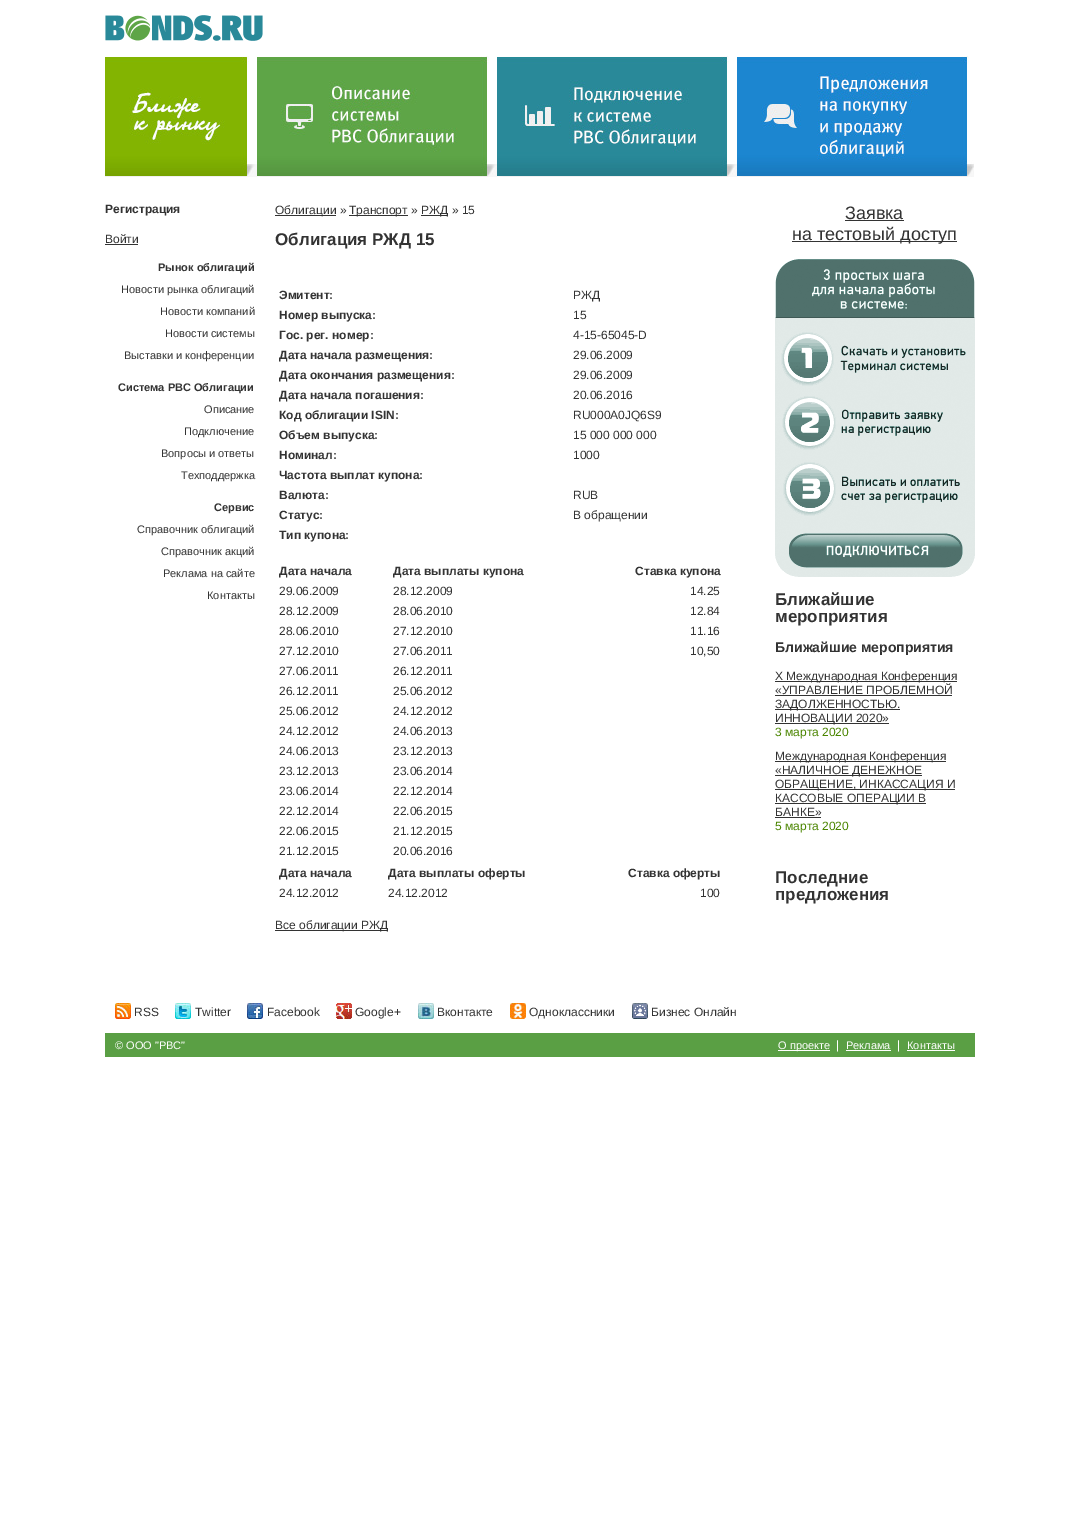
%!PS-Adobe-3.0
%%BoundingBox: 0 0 1079 1535
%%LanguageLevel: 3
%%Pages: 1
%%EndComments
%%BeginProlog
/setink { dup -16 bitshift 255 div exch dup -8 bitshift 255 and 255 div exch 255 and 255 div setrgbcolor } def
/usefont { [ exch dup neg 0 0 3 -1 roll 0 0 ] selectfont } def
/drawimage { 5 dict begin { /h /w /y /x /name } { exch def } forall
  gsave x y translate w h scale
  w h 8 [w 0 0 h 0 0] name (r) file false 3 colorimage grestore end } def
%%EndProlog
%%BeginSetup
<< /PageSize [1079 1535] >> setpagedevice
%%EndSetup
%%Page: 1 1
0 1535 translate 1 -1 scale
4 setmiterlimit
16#FFFFFF setink
0 0 1079 1535 rectfill
(img1.raw) 105 15 158 26 drawimage
(img2.raw) 105 56 869 121 drawimage
/LiberationSans-Bold 12 usefont
16#333333 setink
105 213 moveto (Регистрация) show
/LiberationSans-Regular 12 usefont
105 243 moveto (Войти) show
105 244 33 1 rectfill
/LiberationSans-Bold 11 usefont
158 271 moveto (Рынок облигаций) show
/LiberationSans-Regular 11 usefont
[
    [(Новости рынка облигаций) 121 293]
    [(Новости компаний) 160 315]
    [(Новости системы) 165 337]
    [(Выставки и конференции) 124 359]
] { aload pop moveto show } forall
/LiberationSans-Bold 11 usefont
118 391 moveto (Система РВС Облигации) show
/LiberationSans-Regular 11 usefont
[
    [(Описание) 204 413]
    [(Подключение) 184 435]
    [(Вопросы и ответы) 161 457]
    [(Техподдержка) 181 479]
] { aload pop moveto show } forall
/LiberationSans-Bold 11 usefont
214 511 moveto (Сервис) show
/LiberationSans-Regular 11 usefont
[
    [(Справочник облигаций) 137 533]
    [(Справочник акций) 161 555]
    [(Реклама на сайте) 163 577]
    [(Контакты) 207 599]
] { aload pop moveto show } forall
275 215 61 1 rectfill
/LiberationSans-Regular 12 usefont
275 214 moveto (Облигации ») show
349 215 59 1 rectfill
349 214 moveto (Транспорт ») show
421 215 27 1 rectfill
421 214 moveto (РЖД » 15) show
/LiberationSans-Bold 17 usefont
275 245 moveto (Облигация РЖД 15) show
/LiberationSans-Bold 12 usefont
279 299 moveto (Эмитент:) show
/LiberationSans-Regular 12 usefont
573 299 moveto (РЖД) show
/LiberationSans-Bold 12 usefont
279 319 moveto (Номер выпуска:) show
/LiberationSans-Regular 12 usefont
573 319 moveto (15) show
/LiberationSans-Bold 12 usefont
279 339 moveto (Гос. рег. номер:) show
/LiberationSans-Regular 12 usefont
573 339 moveto (4-15-65045-D) show
/LiberationSans-Bold 12 usefont
279 359 moveto (Дата начала размещения:) show
/LiberationSans-Regular 12 usefont
573 359 moveto (29.06.2009) show
/LiberationSans-Bold 12 usefont
279 379 moveto (Дата окончания размещения:) show
/LiberationSans-Regular 12 usefont
573 379 moveto (29.06.2009) show
/LiberationSans-Bold 12 usefont
279 399 moveto (Дата начала погашения:) show
/LiberationSans-Regular 12 usefont
573 399 moveto (20.06.2016) show
/LiberationSans-Bold 12 usefont
279 419 moveto (Код облигации ISIN:) show
/LiberationSans-Regular 12 usefont
573 419 moveto (RU000A0JQ6S9) show
/LiberationSans-Bold 12 usefont
279 439 moveto (Объем выпуска:) show
/LiberationSans-Regular 12 usefont
573 439 moveto (15 000 000 000) show
/LiberationSans-Bold 12 usefont
279 459 moveto (Номинал:) show
/LiberationSans-Regular 12 usefont
573 459 moveto (1000) show
/LiberationSans-Bold 12 usefont
279 479 moveto (Частота выплат купона:) show
279 499 moveto (Валюта:) show
/LiberationSans-Regular 12 usefont
573 499 moveto (RUB) show
/LiberationSans-Bold 12 usefont
279 519 moveto (Статус:) show
/LiberationSans-Regular 12 usefont
573 519 moveto (В обращении) show
/LiberationSans-Bold 12 usefont
[
    [(Тип купона:) 279 539]
    [(Дата начала) 279 575]
    [(Дата выплаты купона) 393 575]
    [(Ставка купона) 635 575]
] { aload pop moveto show } forall
/LiberationSans-Regular 12 usefont
[
    [(29.06.2009) 279 595]
    [(28.12.2009) 393 595]
    [(14.25) 690 595]
    [(28.12.2009) 279 615]
    [(28.06.2010) 393 615]
    [(12.84) 690 615]
    [(28.06.2010) 279 635]
    [(27.12.2010) 393 635]
    [(11.16) 690 635]
    [(27.12.2010) 279 655]
    [(27.06.2011) 393 655]
    [(10,50) 690 655]
    [(27.06.2011) 279 675]
    [(26.12.2011) 393 675]
    [(26.12.2011) 279 695]
    [(25.06.2012) 393 695]
    [(25.06.2012) 279 715]
    [(24.12.2012) 393 715]
    [(24.12.2012) 279 735]
    [(24.06.2013) 393 735]
    [(24.06.2013) 279 755]
    [(23.12.2013) 393 755]
    [(23.12.2013) 279 775]
    [(23.06.2014) 393 775]
    [(23.06.2014) 279 795]
    [(22.12.2014) 393 795]
    [(22.12.2014) 279 815]
    [(22.06.2015) 393 815]
    [(22.06.2015) 279 835]
    [(21.12.2015) 393 835]
    [(21.12.2015) 279 855]
    [(20.06.2016) 393 855]
] { aload pop moveto show } forall
/LiberationSans-Bold 12 usefont
[
    [(Дата начала) 279 877]
    [(Дата выплаты оферты) 388 877]
    [(Ставка оферты) 628 877]
] { aload pop moveto show } forall
/LiberationSans-Regular 12 usefont
[
    [(24.12.2012) 279 897]
    [(24.12.2012) 388 897]
    [(100) 700 897]
] { aload pop moveto show } forall
275 930 113 1 rectfill
275 929 moveto (Все облигации РЖД) show
/LiberationSans-Regular 18 usefont
845 219 moveto (Заявка) show
845 220 59 1 rectfill
792 241 165 1 rectfill
792 240 moveto (на тестовый доступ) show
(img3.raw) 775 259 200 318 drawimage
/LiberationSans-Bold 17 usefont
775 605 moveto (Ближайшие) show
775 622 moveto (мероприятия) show
/LiberationSans-Bold 14 usefont
775 652 moveto (Ближайшие мероприятия) show
775 681 182 1 rectfill
/LiberationSans-Regular 12 usefont
775 680 moveto (X Международная Конференция) show
775 694 moveto («УПРАВЛЕНИЕ ПРОБЛЕМНОЙ) show
775 695 177 1 rectfill
775 709 125 1 rectfill
775 708 moveto (ЗАДОЛЖЕННОСТЬЮ.) show
775 723 114 1 rectfill
775 722 moveto (ИННОВАЦИИ 2020») show
16#4A8500 setink
775 736 moveto (3 марта 2020) show
16#333333 setink
775 761 171 1 rectfill
775 760 moveto (Международная Конференция) show
775 775 147 1 rectfill
775 774 moveto («НАЛИЧНОЕ ДЕНЕЖНОЕ) show
775 789 180 1 rectfill
775 788 moveto (ОБРАЩЕНИЕ, ИНКАССАЦИЯ И) show
775 803 151 1 rectfill
775 802 moveto (КАССОВЫЕ ОПЕРАЦИИ В) show
775 816 moveto (БАНКЕ») show
775 817 46 1 rectfill
16#4A8500 setink
775 830 moveto (5 марта 2020) show
/LiberationSans-Bold 17 usefont
16#333333 setink
775 883 moveto (Последние) show
775 900 moveto (предложения) show
(img4.raw) 115 1003 16 16 drawimage
/LiberationSans-Regular 12 usefont
134 1016 moveto (RSS) show
(img5.raw) 175 1003 16 16 drawimage
195 1016 moveto (Twitter) show
(img6.raw) 247 1003 16 16 drawimage
267 1016 moveto (Facebook) show
(img7.raw) 336 1003 16 16 drawimage
355 1016 moveto (Google+) show
(img8.raw) 418 1003 16 16 drawimage
437 1016 moveto (Вконтакте) show
(img9.raw) 510 1003 16 16 drawimage
529 1016 moveto (Одноклассники) show
(img10.raw) 632 1003 16 16 drawimage
651 1016 moveto (Бизнес Онлайн) show
16#5A9F44 setink
105 1033 870 24 rectfill
/LiberationSans-Regular 11 usefont
16#FFFFFF setink
115 1049 moveto (© ООО "РВС") show
778 1050 52 1 rectfill
778 1049 moveto (О проекте) show
/LiberationSans-Regular 12 usefont
836 1049 moveto (|) show
/LiberationSans-Regular 11 usefont
846 1049 moveto (Реклама) show
846 1050 45 1 rectfill
/LiberationSans-Regular 12 usefont
897 1049 moveto (|) show
/LiberationSans-Regular 11 usefont
907 1049 moveto (Контакты) show
907 1050 48 1 rectfill
showpage
%%EOF
